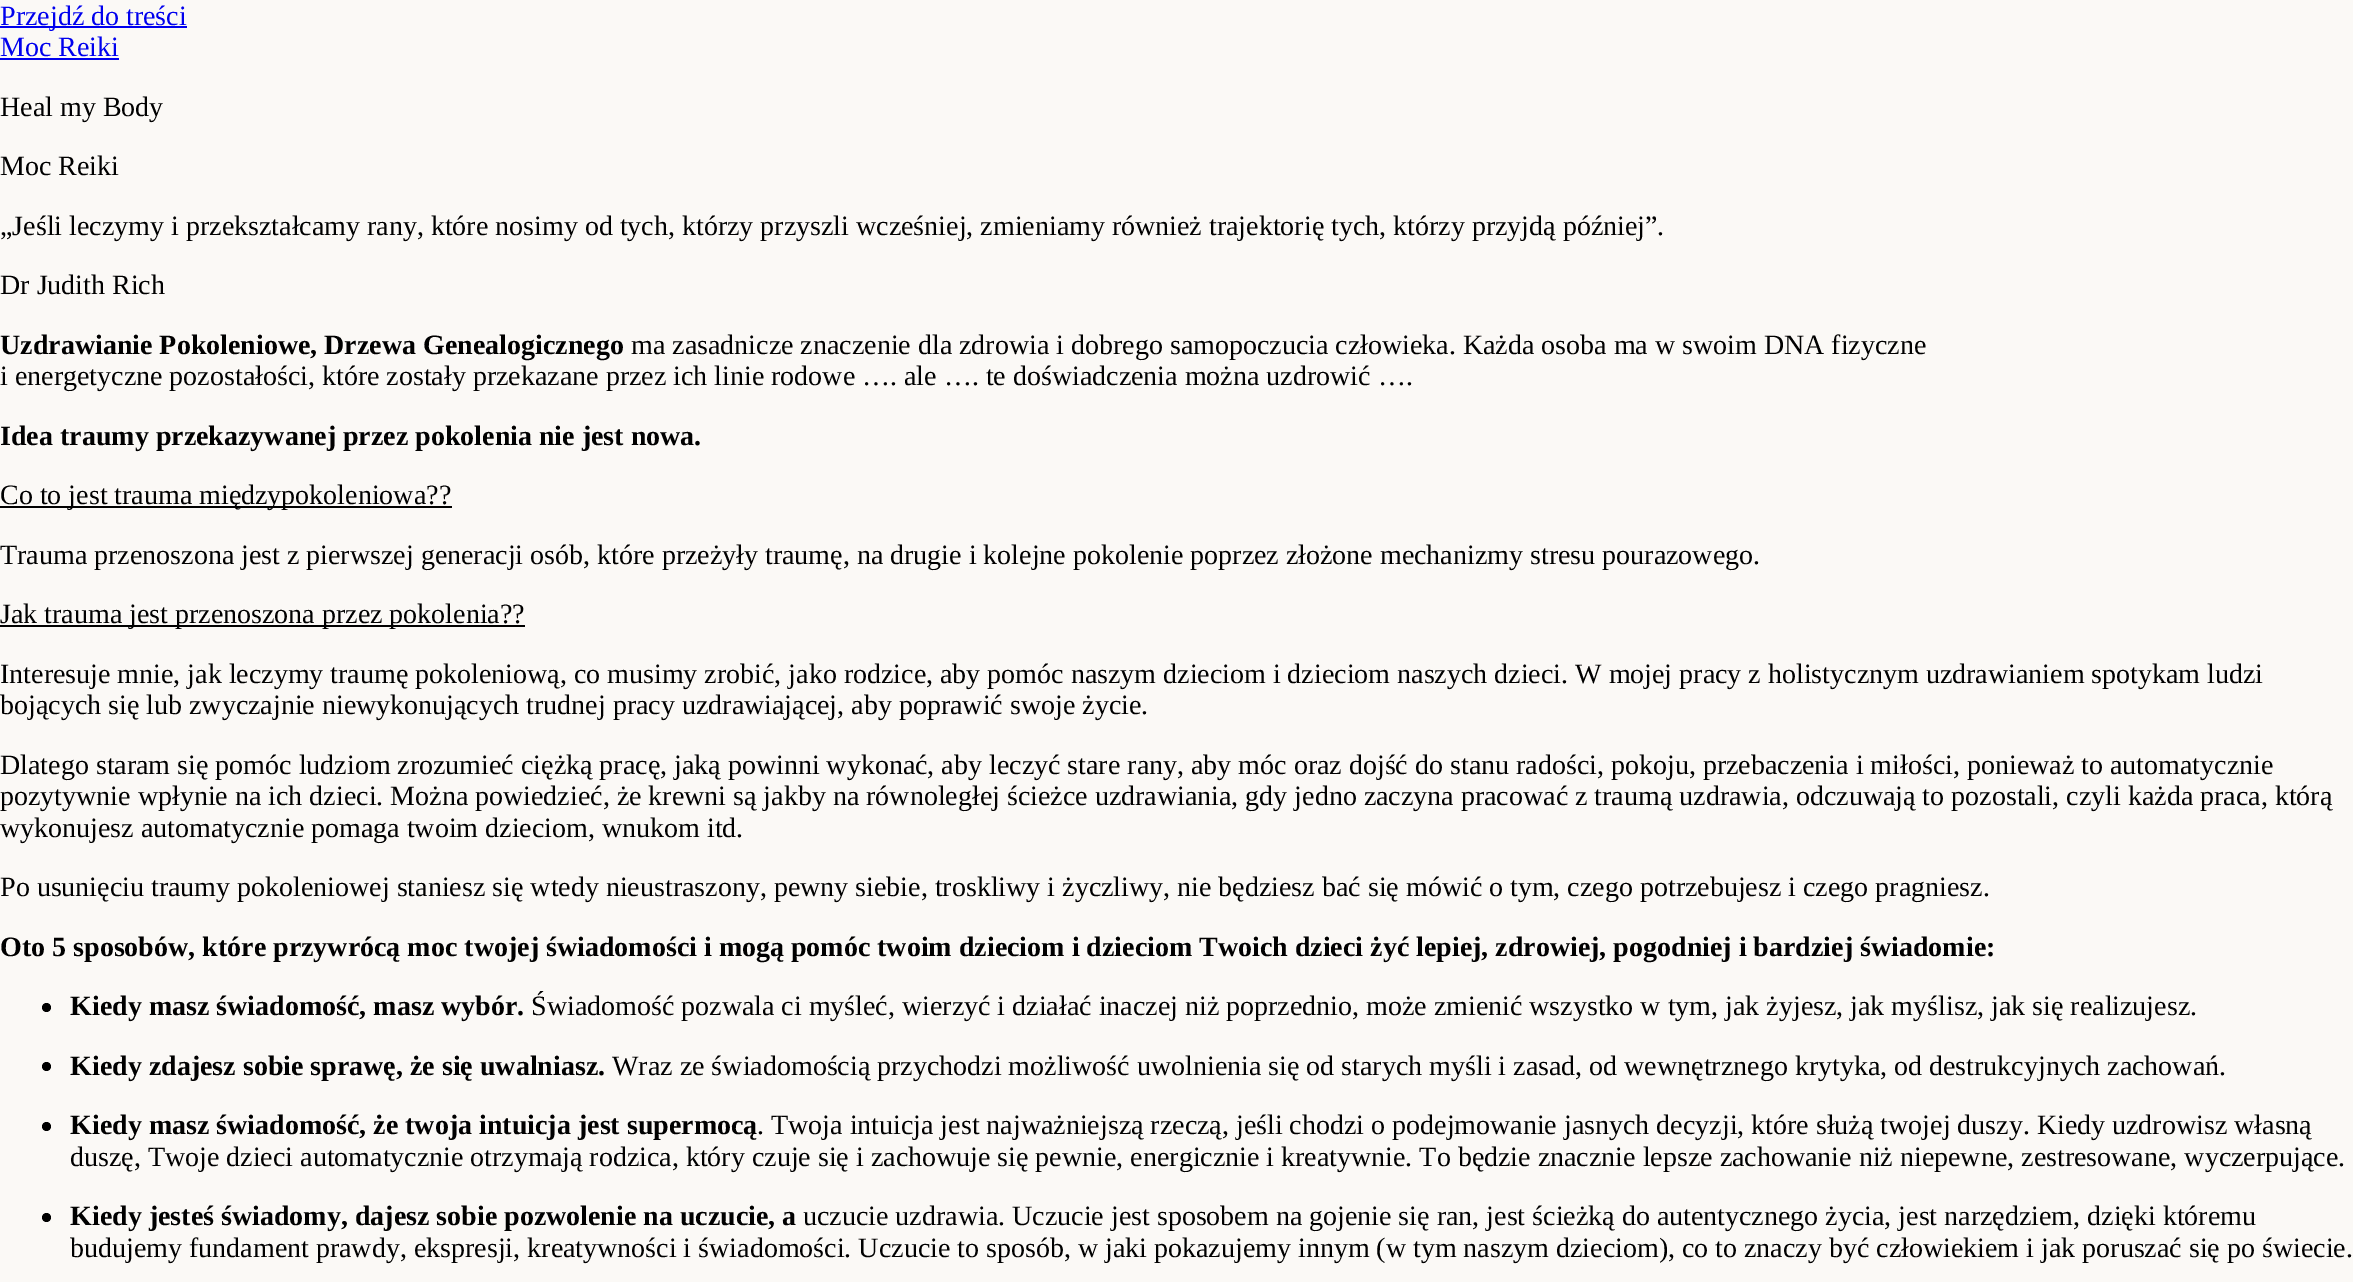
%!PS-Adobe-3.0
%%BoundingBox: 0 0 2353 1282
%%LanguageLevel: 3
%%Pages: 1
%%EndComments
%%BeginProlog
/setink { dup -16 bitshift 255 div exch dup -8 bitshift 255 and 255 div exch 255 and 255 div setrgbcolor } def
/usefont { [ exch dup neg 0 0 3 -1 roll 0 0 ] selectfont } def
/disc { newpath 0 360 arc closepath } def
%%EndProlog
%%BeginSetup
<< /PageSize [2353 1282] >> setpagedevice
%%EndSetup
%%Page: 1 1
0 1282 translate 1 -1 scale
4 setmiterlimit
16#FBF9F6 setink
0 0 2353 1282 rectfill
16#0000EE setink
0 26 187 2 rectfill
/LiberationSerif-Regular 28 usefont
0 25 moveto (Przejdź do treści) show
0 56 moveto (Moc Reiki) show
0 58 119 2 rectfill
16#000000 setink
[
    [(Heal my Body) 0 116]
    [(Moc Reiki) 0 175]
    [(„Jeśli leczymy i przekształcamy rany, które nosimy od tych, którzy przyszli wcześniej, zmieniamy również trajektorię tych, którzy przyjdą później”.) 0 235]
    [(Dr Judith Rich) 0 294]
] { aload pop moveto show } forall
/LiberationSerif-Bold 28 usefont
0 354 moveto (Uzdrawianie Pokoleniowe, Drzewa Genealogicznego) show
/LiberationSerif-Regular 28 usefont
631 354 moveto (ma zasadnicze znaczenie dla zdrowia i dobrego samopoczucia człowieka. Każda osoba ma w swoim DNA fizyczne) show
0 385 moveto (i energetyczne pozostałości, które zostały przekazane przez ich linie rodowe …. ale …. te doświadczenia można uzdrowić ….) show
/LiberationSerif-Bold 28 usefont
0 445 moveto (Idea traumy przekazywanej przez pokolenia nie jest nowa.) show
0 506 452 2 rectfill
/LiberationSerif-Regular 28 usefont
0 504 moveto (Co to jest trauma międzypokoleniowa??) show
0 564 moveto (Trauma przenoszona jest z pierwszej generacji osób, które przeżyły traumę, na drugie i kolejne pokolenie poprzez złożone mechanizmy stresu pourazowego.) show
0 625 525 2 rectfill
[
    [(Jak trauma jest przenoszona przez pokolenia??) 0 623]
    [(Interesuje mnie, jak leczymy traumę pokoleniową, co musimy zrobić, jako rodzice, aby pomóc naszym dzieciom i dzieciom naszych dzieci. W mojej pracy z holistycznym uzdrawianiem spotykam ludzi) 0 683]
    [(bojących się lub zwyczajnie niewykonujących trudnej pracy uzdrawiającej, aby poprawić swoje życie.) 0 714]
    [(Dlatego staram się pomóc ludziom zrozumieć ciężką pracę, jaką powinni wykonać, aby leczyć stare rany, aby móc oraz dojść do stanu radości, pokoju, przebaczenia i miłości, ponieważ to automatycznie) 0 774]
    [(pozytywnie wpłynie na ich dzieci. Można powiedzieć, że krewni są jakby na równoległej ścieżce uzdrawiania, gdy jedno zaczyna pracować z traumą uzdrawia, odczuwają to pozostali, czyli każda praca, którą) 0 805]
    [(wykonujesz automatycznie pomaga twoim dzieciom, wnukom itd.) 0 837]
    [(Po usunięciu traumy pokoleniowej staniesz się wtedy nieustraszony, pewny siebie, troskliwy i życzliwy, nie będziesz bać się mówić o tym, czego potrzebujesz i czego pragniesz.) 0 896]
] { aload pop moveto show } forall
/LiberationSerif-Bold 28 usefont
0 956 moveto (Oto 5 sposobów, które przywrócą moc twojej świadomości i mogą pomóc twoim dzieciom i dzieciom Twoich dzieci żyć lepiej, zdrowiej, pogodniej i bardziej świadomie:) show
46.5 1007.5 4.5 disc fill
70 1015 moveto (Kiedy masz świadomość, masz wybór.) show
/LiberationSerif-Regular 28 usefont
531 1015 moveto (Świadomość pozwala ci myśleć, wierzyć i działać inaczej niż poprzednio, może zmienić wszystko w tym, jak żyjesz, jak myślisz, jak się realizujesz.) show
46.5 1066.5 4.5 disc fill
/LiberationSerif-Bold 28 usefont
70 1075 moveto (Kiedy zdajesz sobie sprawę, że się uwalniasz.) show
/LiberationSerif-Regular 28 usefont
612 1075 moveto (Wraz ze świadomością przychodzi możliwość uwolnienia się od starych myśli i zasad, od wewnętrznego krytyka, od destrukcyjnych zachowań.) show
46.5 1126.5 4.5 disc fill
/LiberationSerif-Bold 28 usefont
70 1134 moveto (Kiedy masz świadomość, że twoja intuicja jest supermocą) show
/LiberationSerif-Regular 28 usefont
757 1134 moveto (. Twoja intuicja jest najważniejszą rzeczą, jeśli chodzi o podejmowanie jasnych decyzji, które służą twojej duszy. Kiedy uzdrowisz własną) show
70 1166 moveto (duszę, Twoje dzieci automatycznie otrzymają rodzica, który czuje się i zachowuje się pewnie, energicznie i kreatywnie. To będzie znacznie lepsze zachowanie niż niepewne, zestresowane, wyczerpujące.) show
46.5 1217.5 4.5 disc fill
/LiberationSerif-Bold 28 usefont
70 1225 moveto (Kiedy jesteś świadomy, dajesz sobie pozwolenie na uczucie, a) show
/LiberationSerif-Regular 28 usefont
803 1225 moveto (uczucie uzdrawia. Uczucie jest sposobem na gojenie się ran, jest ścieżką do autentycznego życia, jest narzędziem, dzięki któremu) show
70 1257 moveto (budujemy fundament prawdy, ekspresji, kreatywności i świadomości. Uczucie to sposób, w jaki pokazujemy innym \(w tym naszym dzieciom\), co to znaczy być człowiekiem i jak poruszać się po świecie.) show
showpage
%%EOF
